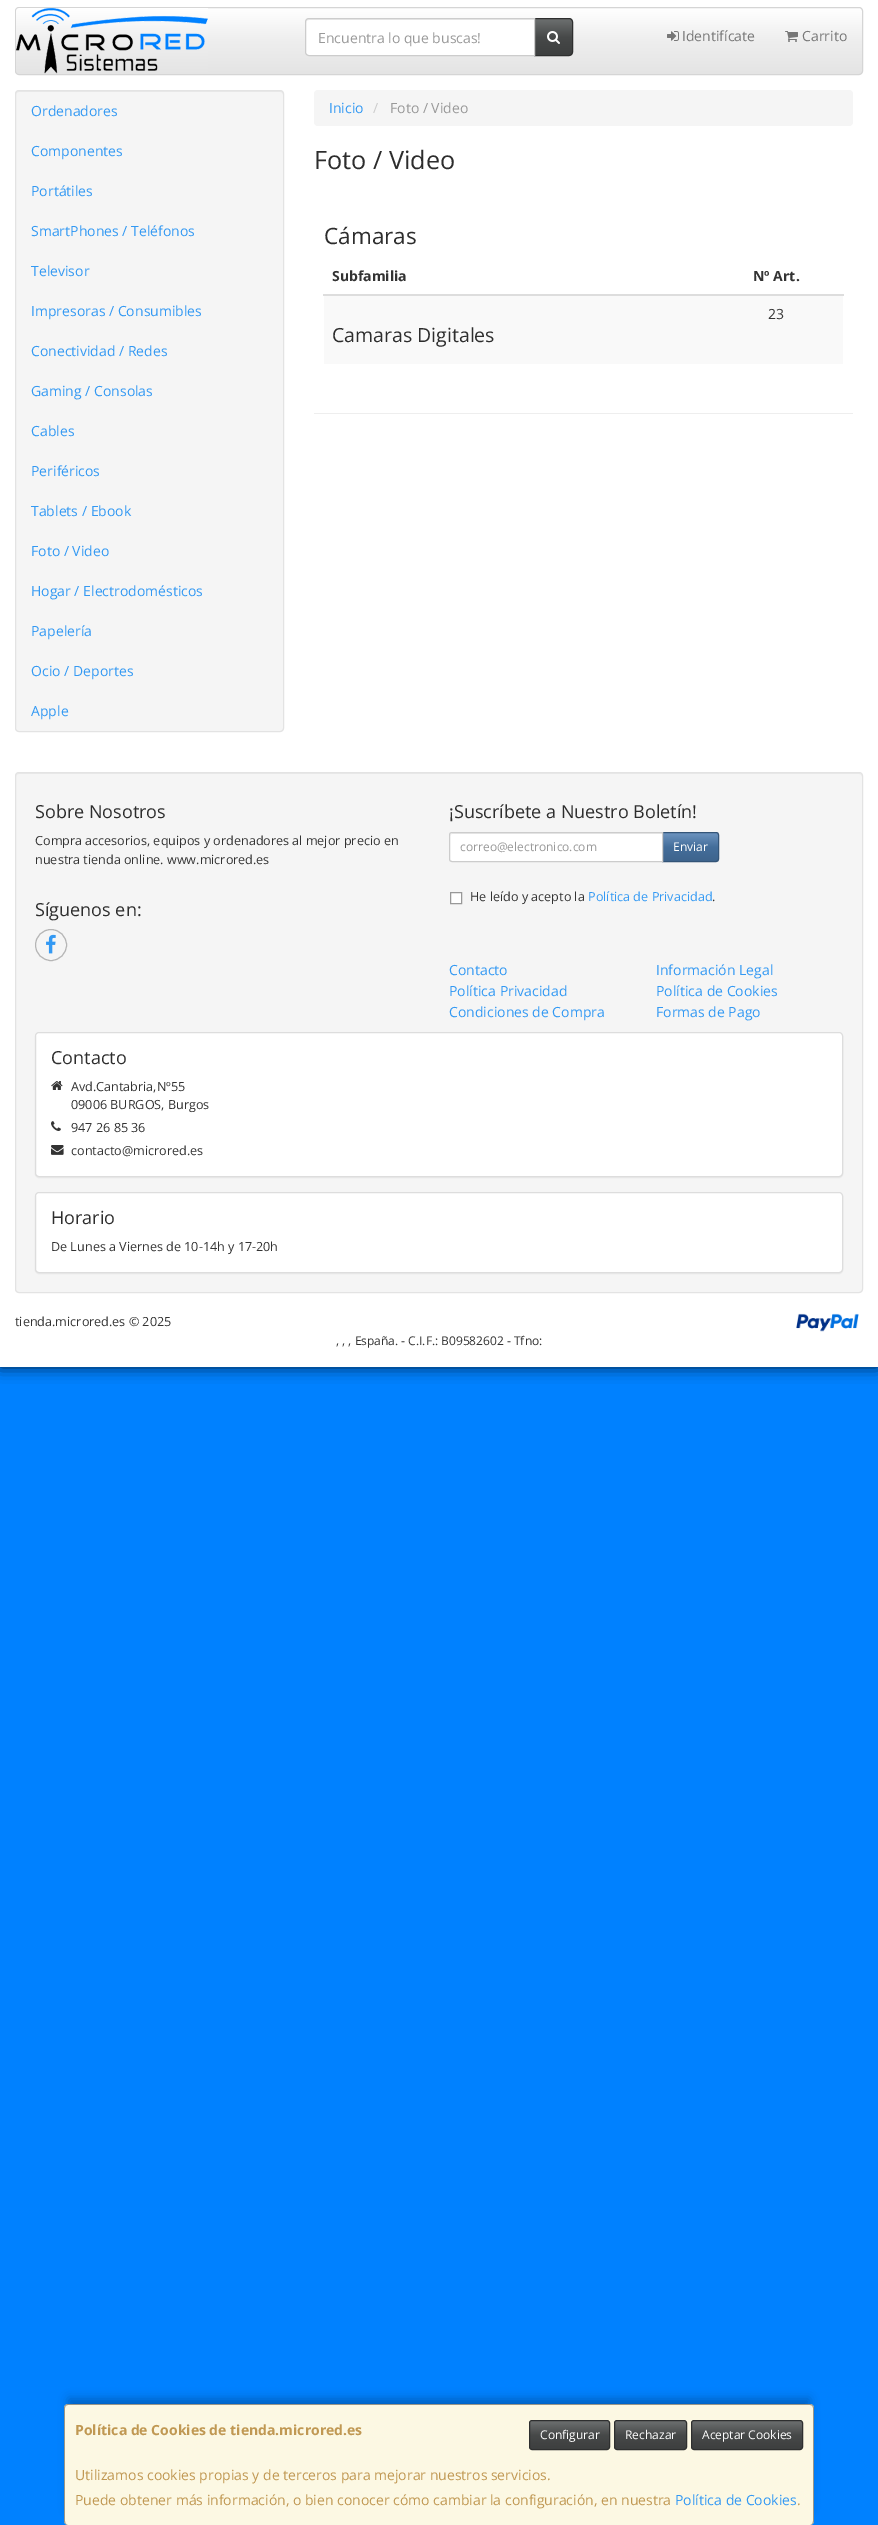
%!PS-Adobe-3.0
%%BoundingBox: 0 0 878 2525
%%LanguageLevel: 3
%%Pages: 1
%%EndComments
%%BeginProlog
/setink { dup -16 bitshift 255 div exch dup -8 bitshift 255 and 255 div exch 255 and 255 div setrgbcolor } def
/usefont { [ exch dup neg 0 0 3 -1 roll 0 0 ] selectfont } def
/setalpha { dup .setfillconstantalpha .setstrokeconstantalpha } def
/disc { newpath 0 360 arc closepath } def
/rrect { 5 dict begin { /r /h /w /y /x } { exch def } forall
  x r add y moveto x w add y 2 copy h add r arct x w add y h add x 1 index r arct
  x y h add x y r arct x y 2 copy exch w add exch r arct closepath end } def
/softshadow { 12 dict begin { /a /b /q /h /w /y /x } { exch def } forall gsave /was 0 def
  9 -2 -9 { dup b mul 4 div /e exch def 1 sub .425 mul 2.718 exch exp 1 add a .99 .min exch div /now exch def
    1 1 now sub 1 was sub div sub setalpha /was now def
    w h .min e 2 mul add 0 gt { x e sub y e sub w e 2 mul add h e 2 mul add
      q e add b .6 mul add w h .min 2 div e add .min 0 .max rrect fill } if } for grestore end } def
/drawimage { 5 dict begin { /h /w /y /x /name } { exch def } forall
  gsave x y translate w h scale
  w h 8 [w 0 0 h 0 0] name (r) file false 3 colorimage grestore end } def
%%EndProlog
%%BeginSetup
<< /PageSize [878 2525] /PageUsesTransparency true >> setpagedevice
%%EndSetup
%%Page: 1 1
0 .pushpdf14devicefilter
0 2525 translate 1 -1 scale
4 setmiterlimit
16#0081FF setink
0 0 878 2525 rectfill
16#000000 setink
0 0 878 1367 0 7.5 0.75 softshadow
16#FFFFFF setink
0 0 878 1367 rectfill
gsave
15 7 848 68 4 rrect clip newpath
gsave 16 8 moveto 862 8 lineto 862 74 lineto 16 74 lineto closepath clip newpath
<< /ShadingType 2 /ColorSpace /DeviceRGB /Coords [439 8 439 74] /Extend [true true] /Function << /FunctionType 3 /Domain [0 1] /Functions [<< /FunctionType 2 /Domain [0 1] /C0 [1 1 1] /C1 [0.933 0.933 0.933] /N 1 >> << /FunctionType 2 /Domain [0 1] /C0 [0.933 0.933 0.933] /C1 [0.894 0.894 0.894] /N 1 >>] /Bounds [0.5] /Encode [0 1 0 1] >> >> shfill grestore
grestore
16#D5D5D5 setink
15.5 7.5 847 67 3.5 rrect stroke
(img1.raw) 16 8 192 66 drawimage
gsave 535 19 moveto 572 19 lineto 572 55 lineto 535 55 lineto closepath clip newpath
<< /ShadingType 2 /ColorSpace /DeviceRGB /Coords [554 19 554 55] /Extend [true true] /Function << /FunctionType 3 /Domain [0 1] /Functions [<< /FunctionType 2 /Domain [0 1] /C0 [0.427 0.439 0.439] /C1 [0.278 0.286 0.286] /N 1 >> << /FunctionType 2 /Domain [0 1] /C0 [0.278 0.286 0.286] /C1 [0.239 0.247 0.247] /N 1 >>] /Bounds [0.5] /Encode [0 1 0 1] >> >> shfill grestore
16#2E2F2F setink
534.5 18.5 moveto 569 18.5 lineto 571 18.5 572.5 20 572.5 22 curveto 572.5 52 lineto 572.5 54 571 55.5 569 55.5 curveto 534.5 55.5 lineto closepath stroke
16#FFFFFF setink
309 18 moveto 535 18 lineto 535 56 lineto 309 56 lineto 307 56 305 54 305 52 curveto 305 22 lineto 305 20 307 18 309 18 curveto closepath fill
16#ECECEC setink
309 20 moveto 534 20 lineto 534 19 lineto 309 19 lineto 307 19 306 21 306 23 curveto 306 21 307 20 309 20 curveto closepath fill
16#CCCCCC setink
309 18.5 moveto 534.5 18.5 lineto 534.5 55.5 lineto 309 55.5 lineto 307 55.5 305.5 54 305.5 52 curveto 305.5 22 lineto 305.5 20 307 18.5 309 18.5 curveto closepath stroke
/OpenSans-Regular 14 usefont
16#999999 setink
318 43 moveto (Encuentra lo que buscas!) show
(img2.raw) 547 31 13 13 drawimage
(img3.raw) 667 31 12 10 drawimage
16#777777 setink
682 41 moveto (Identifícate) show
(img4.raw) 785 31 13 11 drawimage
802 41 moveto (Carrito) show
16#F5F5F5 setink
15 90 269 642 4 rrect fill
16#E9E9E9 setink
19 92 moveto 280 92 lineto 282 92 283 93 283 95 curveto 283 94 lineto 283 92 282 91 280 91 curveto 19 91 lineto 17 91 16 92 16 94 curveto 16 95 lineto 16 93 17 92 19 92 curveto closepath fill
16#E3E3E3 setink
15.5 90.5 268 641 3.5 rrect stroke
16#3399F3 setink
[
    [(Ordenadores) 31 116]
    [(Componentes) 31 156]
    [(Portátiles) 31 196]
    [(SmartPhones / Teléfonos) 31 236]
    [(Televisor) 31 276]
    [(Impresoras / Consumibles) 31 316]
    [(Conectividad / Redes) 31 356]
    [(Gaming / Consolas) 31 396]
    [(Cables) 31 436]
    [(Periféricos) 31 476]
    [(Tablets / Ebook) 31 516]
    [(Foto / Video) 31 556]
    [(Hogar / Electrodomésticos) 31 596]
    [(Papelería) 31 636]
    [(Ocio / Deportes) 31 676]
    [(Apple) 31 716]
] { aload pop moveto show } forall
16#F5F5F5 setink
314 90 539 36 4 rrect fill
16#3399F3 setink
329 113 moveto (Inicio) show
16#CCCCCC setink
373 113 moveto (/) show
16#999999 setink
390 113 moveto (Foto / Video) show
16#EEEEEE setink
314 413 539 1 rectfill
/OpenSans-Regular 25.25 usefont
16#2D2D2D setink
314 169 moveto (Foto / Video) show
/OpenSans-Regular 22.5 usefont
324 244 moveto (Cámaras) show
/OpenSans-Bold 14 usefont
16#333333 setink
332 281 moveto (Subfamilia) show
16#DDDDDD setink
323 294 521 2 rectfill
16#333333 setink
753 281 moveto (Nº Art.) show
16#F9F9F9 setink
324 296 519 68 rectfill
/OpenSans-Regular 14 usefont
16#333333 setink
768 319 moveto (23) show
/OpenSans-Regular 19.5 usefont
16#2D2D2D setink
332 342 moveto (Camaras Digitales) show
16#F5F5F5 setink
15 772 848 521 4 rrect fill
16#E9E9E9 setink
19 774 moveto 859 774 lineto 861 774 862 775 862 777 curveto 862 775 861 773 859 773 curveto 19 773 lineto 17 773 16 775 16 777 curveto 16 775 17 774 19 774 curveto closepath fill
16#E3E3E3 setink
15.5 772.5 847 520 3.5 rrect stroke
/OpenSans-Regular 18 usefont
16#2D2D2D setink
35 818 moveto (Sobre Nosotros) show
/OpenSans-Regular 12.6 usefont
16#333333 setink
35 845 moveto (Compra accesorios, equipos y ordenadores al mejor precio en) show
35 864 moveto (nuestra tienda online. www.microred.es) show
/OpenSans-Regular 18 usefont
16#2D2D2D setink
35 916 moveto (Síguenos en:) show
16#B5B5B5 setink
51 945 15.5 disc stroke
(img5.raw) 46 934 10 20 drawimage
16#2D2D2D setink
449 818 moveto (¡Suscríbete a Nuestro Boletín!) show
gsave 663 833 moveto 718 833 lineto 718 861 lineto 663 861 lineto closepath clip newpath
<< /ShadingType 2 /ColorSpace /DeviceRGB /Coords [691 833 691 861] /Extend [true true] /Function << /FunctionType 3 /Domain [0 1] /Functions [<< /FunctionType 2 /Domain [0 1] /C0 [0.427 0.58 0.749] /C1 [0.267 0.431 0.608] /N 1 >> << /FunctionType 2 /Domain [0 1] /C0 [0.267 0.431 0.608] /C1 [0.243 0.392 0.553] /N 1 >>] /Bounds [0.5] /Encode [0 1 0 1] >> >> shfill grestore
16#345578 setink
662.5 832.5 moveto 716 832.5 lineto 717.5 832.5 718.5 833.5 718.5 835 curveto 718.5 859 lineto 718.5 860.5 717.5 861.5 716 861.5 curveto 662.5 861.5 lineto closepath stroke
16#FFFFFF setink
452 832 moveto 663 832 lineto 663 862 lineto 452 862 lineto 450.5 862 449 860.5 449 859 curveto 449 835 lineto 449 833.5 450.5 832 452 832 curveto closepath fill
16#ECECEC setink
452 834 moveto 662 834 lineto 662 833 lineto 452 833 lineto 451 834 lineto 450 836 lineto 450 835 451 834 452 834 curveto closepath fill
16#CCCCCC setink
452 832.5 moveto 662.5 832.5 lineto 662.5 861.5 lineto 452 861.5 lineto 450.5 861.5 449.5 860.5 449.5 859 curveto 449.5 835 lineto 449.5 833.5 450.5 832.5 452 832.5 curveto closepath stroke
/OpenSans-Regular 12 usefont
16#999999 setink
460 851 moveto (correo@electronico.com) show
16#FFFFFF setink
673 851 moveto (Enviar) show
450.5 892.5 moveto 461.5 892.5 lineto 461.5 903.5 lineto 450.5 903.5 lineto closepath gsave fill grestore
16#999999 setink
stroke
/OpenSans-Regular 12.6 usefont
16#333333 setink
470 901 moveto (He leído y acepto la) show
16#3399F3 setink
588 901 moveto (Política de Privacidad) show
16#333333 setink
712 901 moveto (.) show
/OpenSans-Regular 14 usefont
16#3399F3 setink
[
    [(Contacto) 449 975]
    [(Información Legal) 656 975]
    [(Política Privacidad) 449 996]
    [(Política de Cookies) 656 996]
    [(Condiciones de Compra) 449 1017]
    [(Formas de Pago) 656 1017]
] { aload pop moveto show } forall
16#000000 setink
35 1033 808 145 4 0.5 0.05 softshadow
16#FFFFFF setink
35.5 1032.5 807 144 3.5 rrect gsave fill grestore
16#DDDDDD setink
stroke
/OpenSans-Regular 18 usefont
16#2D2D2D setink
51 1064 moveto (Contacto) show
(img6.raw) 51 1081 12 9 drawimage
/OpenSans-Regular 12.6 usefont
16#333333 setink
71 1091 moveto (Avd.Cantabria,Nº55) show
71 1109 moveto (09006 BURGOS, Burgos) show
(img7.raw) 51 1121 10 10 drawimage
71 1132 moveto (947 26 85 36) show
(img8.raw) 51 1145 13 10 drawimage
71 1155 moveto (contacto@microred.es) show
16#000000 setink
35 1193 808 81 4 0.5 0.05 softshadow
16#FFFFFF setink
35.5 1192.5 807 80 3.5 rrect gsave fill grestore
16#DDDDDD setink
stroke
/OpenSans-Regular 18 usefont
16#2D2D2D setink
51 1224 moveto (Horario) show
/OpenSans-Regular 12.6 usefont
16#333333 setink
51 1251 moveto (De Lunes a Viernes de 10-14h y 17-20h) show
15 1326 moveto (tienda.microred.es © 2025) show
(img9.raw) 796 1313 63 19 drawimage
/OpenSans-Regular 12 usefont
336 1345 moveto (, , , España. - C.I.F.: B09582602 - Tfno:) show
16#000000 setink
69 2399 740 111 0 5 0.25 softshadow
16#FCF8E3 setink
64 2404 750 121 4 rrect fill
0.4 setalpha
16#000000 setink
68 2404 moveto 810 2404 lineto 812 2404 814 2406 814 2408 curveto 814 2521 lineto 814 2523 812 2525 810 2525 curveto 68 2525 lineto 66 2525 64 2523 64 2521 curveto 64 2408 lineto 64 2406 66 2404 68 2404 curveto closepath 68 2405 moveto 810 2405 lineto 812 2405 813 2406 813 2408 curveto 813 2521 lineto 813 2523 812 2525 810 2525 curveto 68 2525 lineto 66 2525 65 2523 65 2521 curveto 65 2408 lineto 65 2406 66 2405 68 2405 curveto closepath eofill
/OpenSans-Bold 14 usefont
1 setalpha
16#C09853 setink
75 2435 moveto (Política de Cookies de tienda.microred.es) show
gsave 530 2421 moveto 609 2421 lineto 609 2449 lineto 530 2449 lineto closepath clip newpath
<< /ShadingType 2 /ColorSpace /DeviceRGB /Coords [570 2421 570 2449] /Extend [true true] /Function << /FunctionType 3 /Domain [0 1] /Functions [<< /FunctionType 2 /Domain [0 1] /C0 [0.427 0.439 0.439] /C1 [0.278 0.286 0.286] /N 1 >> << /FunctionType 2 /Domain [0 1] /C0 [0.278 0.286 0.286] /C1 [0.239 0.247 0.247] /N 1 >>] /Bounds [0.5] /Encode [0 1 0 1] >> >> shfill grestore
16#2E2F2F setink
529.5 2420.5 80 29 2.5 rrect stroke
/OpenSans-Regular 12 usefont
16#FFFFFF setink
540 2439 moveto (Configurar) show
gsave 615 2421 moveto 686 2421 lineto 686 2449 lineto 615 2449 lineto closepath clip newpath
<< /ShadingType 2 /ColorSpace /DeviceRGB /Coords [651 2421 651 2449] /Extend [true true] /Function << /FunctionType 3 /Domain [0 1] /Functions [<< /FunctionType 2 /Domain [0 1] /C0 [0.427 0.439 0.439] /C1 [0.278 0.286 0.286] /N 1 >> << /FunctionType 2 /Domain [0 1] /C0 [0.278 0.286 0.286] /C1 [0.239 0.247 0.247] /N 1 >>] /Bounds [0.5] /Encode [0 1 0 1] >> >> shfill grestore
16#2E2F2F setink
614.5 2420.5 72 29 2.5 rrect stroke
16#FFFFFF setink
625 2439 moveto (Rechazar) show
gsave 692 2421 moveto 802 2421 lineto 802 2449 lineto 692 2449 lineto closepath clip newpath
<< /ShadingType 2 /ColorSpace /DeviceRGB /Coords [747 2421 747 2449] /Extend [true true] /Function << /FunctionType 3 /Domain [0 1] /Functions [<< /FunctionType 2 /Domain [0 1] /C0 [0.427 0.439 0.439] /C1 [0.278 0.286 0.286] /N 1 >> << /FunctionType 2 /Domain [0 1] /C0 [0.278 0.286 0.286] /C1 [0.239 0.247 0.247] /N 1 >>] /Bounds [0.5] /Encode [0 1 0 1] >> >> shfill grestore
16#2E2F2F setink
691.5 2420.5 111 29 2.5 rrect stroke
16#FFFFFF setink
702 2439 moveto (Aceptar Cookies) show
/OpenSans-Regular 14 usefont
16#C09853 setink
75 2480 moveto (Utilizamos cookies propias y de terceros para mejorar nuestros servicios.) show
75 2505 moveto (Puede obtener más información, o bien conocer cómo cambiar la configuración, en nuestra) show
16#3399F3 setink
675 2505 moveto (Política de Cookies) show
16#C09853 setink
797 2505 moveto (.) show
.poppdf14devicefilter showpage
%%EOF
